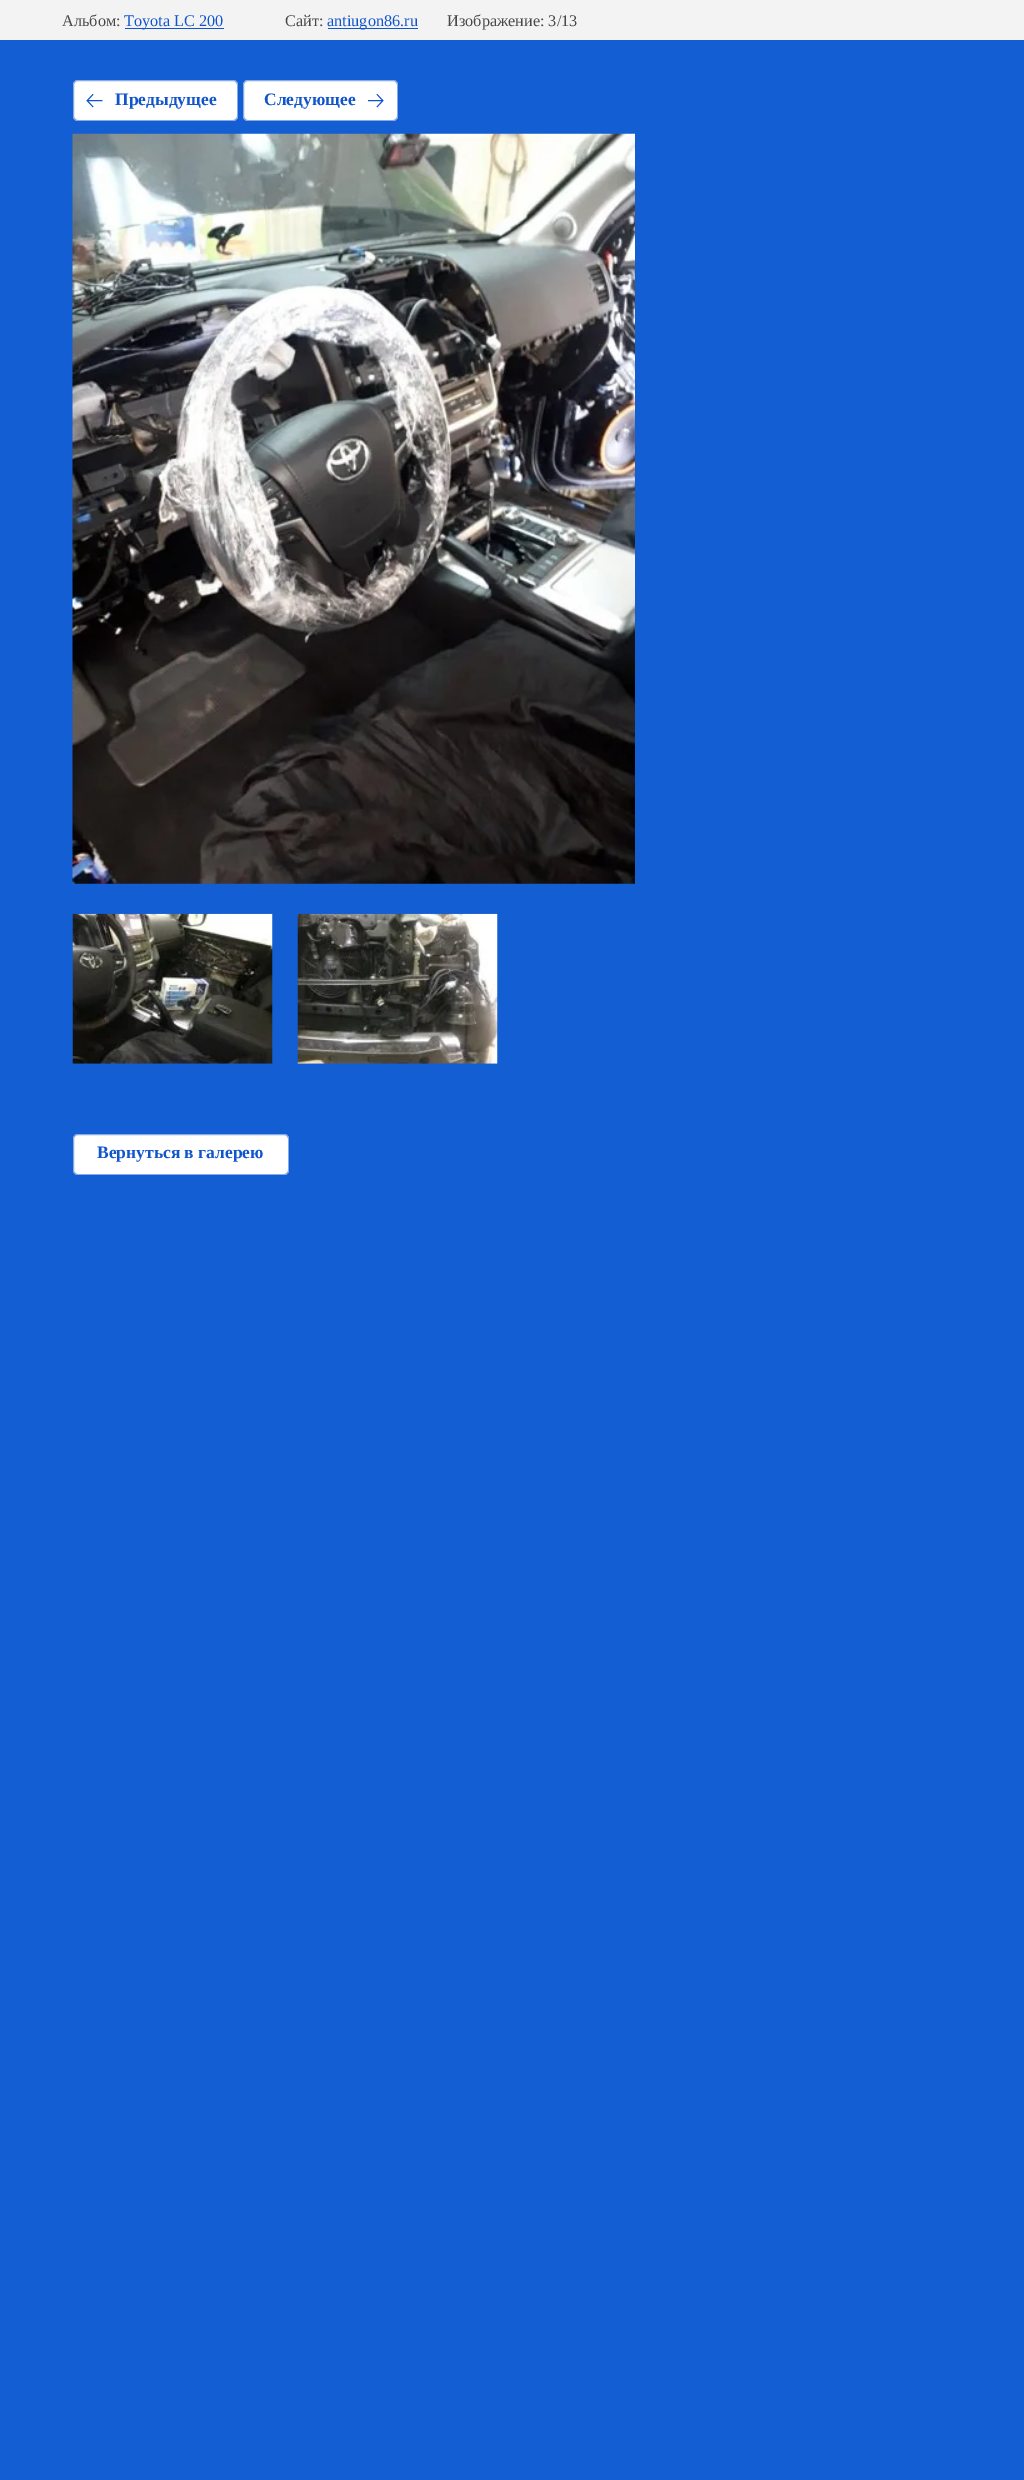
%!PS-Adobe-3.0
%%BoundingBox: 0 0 1024 2480
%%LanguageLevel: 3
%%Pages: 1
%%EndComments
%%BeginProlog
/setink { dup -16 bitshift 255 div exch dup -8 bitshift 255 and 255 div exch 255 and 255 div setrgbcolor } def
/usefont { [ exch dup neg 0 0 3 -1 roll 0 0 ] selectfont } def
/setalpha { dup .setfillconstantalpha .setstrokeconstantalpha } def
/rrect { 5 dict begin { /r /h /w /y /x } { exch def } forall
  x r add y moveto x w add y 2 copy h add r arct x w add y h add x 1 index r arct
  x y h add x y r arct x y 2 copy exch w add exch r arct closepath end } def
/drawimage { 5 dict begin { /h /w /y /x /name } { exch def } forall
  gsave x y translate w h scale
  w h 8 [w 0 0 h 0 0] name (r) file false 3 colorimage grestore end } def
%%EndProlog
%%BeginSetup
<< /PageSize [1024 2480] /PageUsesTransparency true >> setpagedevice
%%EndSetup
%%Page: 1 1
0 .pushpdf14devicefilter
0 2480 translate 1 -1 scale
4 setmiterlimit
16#125ED2 setink
0 0 1024 2480 rectfill
16#F3F3F3 setink
0 0 1024 40 rectfill
/LiberationSerif-Regular 16.25 usefont
16#484848 setink
62 26 moveto (Альбом:) show
16#1155CC setink
125 28 99 1 rectfill
124 26 moveto (Toyota LC 200) show
16#484848 setink
285 26 moveto (Сайт:) show
16#1155CC setink
328 28 90 1 rectfill
327 26 moveto (antiugon86.ru) show
16#484848 setink
447 26 moveto (Изображение: 3/13) show
16#FFFFFF setink
73 80 165 41 5 rrect fill
0.5 setalpha
16#1155CC setink
73.5 80.5 164 40 4.5 rrect stroke
1 setalpha
(img1.raw) 86 94 17 14 drawimage
/LiberationSerif-Bold 17.5 usefont
115 105 moveto (Предыдущее) show
16#FFFFFF setink
243 80 155 41 5 rrect fill
0.5 setalpha
16#1155CC setink
243.5 80.5 154 40 4.5 rrect stroke
1 setalpha
264 105 moveto (Следующее) show
(img2.raw) 368 94 16 14 drawimage
(img3.raw) 72 133 563 751 drawimage
(img4.raw) 72 913 201 151 drawimage
(img5.raw) 297 913 201 151 drawimage
16#FFFFFF setink
73 1134 216 41 5 rrect fill
0.5 setalpha
16#1155CC setink
73.5 1134.5 215 40 4.5 rrect stroke
1 setalpha
97 1158 moveto (Вернуться в галерею) show
.poppdf14devicefilter showpage
%%EOF
